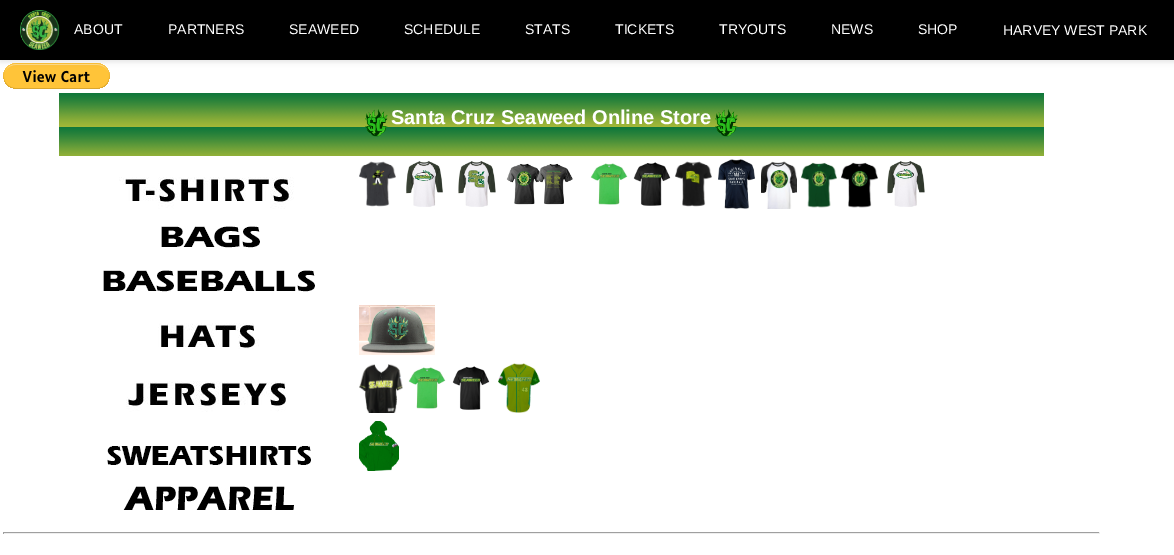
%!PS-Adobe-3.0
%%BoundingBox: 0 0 1174 555
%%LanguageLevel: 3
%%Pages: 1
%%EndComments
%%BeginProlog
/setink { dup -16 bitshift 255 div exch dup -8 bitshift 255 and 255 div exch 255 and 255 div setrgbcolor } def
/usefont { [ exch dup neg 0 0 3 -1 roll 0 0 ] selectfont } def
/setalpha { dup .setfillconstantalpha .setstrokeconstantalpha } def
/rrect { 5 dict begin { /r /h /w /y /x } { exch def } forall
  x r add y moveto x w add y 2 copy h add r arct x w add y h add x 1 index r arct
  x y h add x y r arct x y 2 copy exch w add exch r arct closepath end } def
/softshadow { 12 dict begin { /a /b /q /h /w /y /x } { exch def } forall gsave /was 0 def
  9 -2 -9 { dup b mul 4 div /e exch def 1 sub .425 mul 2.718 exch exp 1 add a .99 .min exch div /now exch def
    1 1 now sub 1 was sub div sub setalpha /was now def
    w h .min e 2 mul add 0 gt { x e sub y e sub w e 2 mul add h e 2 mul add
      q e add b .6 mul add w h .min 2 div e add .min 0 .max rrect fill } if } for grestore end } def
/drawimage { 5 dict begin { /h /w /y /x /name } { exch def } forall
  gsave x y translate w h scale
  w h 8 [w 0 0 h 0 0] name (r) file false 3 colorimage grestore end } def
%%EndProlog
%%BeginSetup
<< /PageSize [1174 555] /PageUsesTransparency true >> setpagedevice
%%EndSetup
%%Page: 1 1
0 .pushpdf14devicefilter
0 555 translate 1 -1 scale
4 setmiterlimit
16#FFFFFF setink
0 0 1174 555 rectfill
(img2.raw) 3 63 107 26 drawimage
16#000000 setink
0 2 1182 60 0 2.5 0.1 softshadow
0 0 1174 60 rectfill
(img1.raw) 20 10 40 40 drawimage
/LiberationSans-Regular 14 usefont
16#FFFFFF setink
[
    [(ABOUT) 74 34]
    [(PARTNERS) 168 34]
    [(SEAWEED) 289 34]
    [(SCHEDULE) 404 34]
    [(STATS) 525 34]
    [(TICKETS) 615 34]
    [(TRYOUTS) 719 34]
    [(NEWS) 831 34]
    [(SHOP) 918 34]
    [(HARVEY WEST PARK) 1003 35]
] { aload pop moveto show } forall
(img3.raw) 59 93 985 63 drawimage
(img4.raw) 365 109 23 28 drawimage
/LiberationSans-Bold 20 usefont
391 124 moveto (Santa Cruz Seaweed Online Store) show
(img5.raw) 715 109 23 28 drawimage
(img6.raw) 119 177 175 32 drawimage
(img7.raw) 359 161 37 46 drawimage
(img8.raw) 406 161 37 46 drawimage
(img9.raw) 458 161 38 46 drawimage
(img10.raw) 506 163 67 42 drawimage
(img11.raw) 590 163 38 42 drawimage
(img12.raw) 633 162 38 44 drawimage
(img13.raw) 675 161 37 46 drawimage
(img14.raw) 718 159 37 50 drawimage
(img15.raw) 761 161 36 48 drawimage
(img16.raw) 801 162 36 46 drawimage
(img17.raw) 841 162 37 46 drawimage
(img18.raw) 887 161 38 46 drawimage
(img19.raw) 161 226 99 22 drawimage
(img20.raw) 103 270 212 22 drawimage
(img21.raw) 158 323 101 26 drawimage
(img22.raw) 359 305 76 50 drawimage
(img23.raw) 126 381 160 31 drawimage
(img24.raw) 359 364 44 49 drawimage
(img11.raw) 408 367 38 42 drawimage
(img12.raw) 452 366 38 44 drawimage
(img25.raw) 498 363 42 50 drawimage
(img26.raw) 107 446 204 19 drawimage
(img27.raw) 359 421 40 50 drawimage
(img28.raw) 123 486 171 24 drawimage
[
    [3 532 1097 1 16#9F9F9F]
    [1099 532 1 2 16#EEEEEE]
    [3 533 1097 1 16#EEEEEE]
    [3 532 1 2 16#9F9F9F]
] { aload pop setink rectfill } forall
.poppdf14devicefilter showpage
%%EOF
